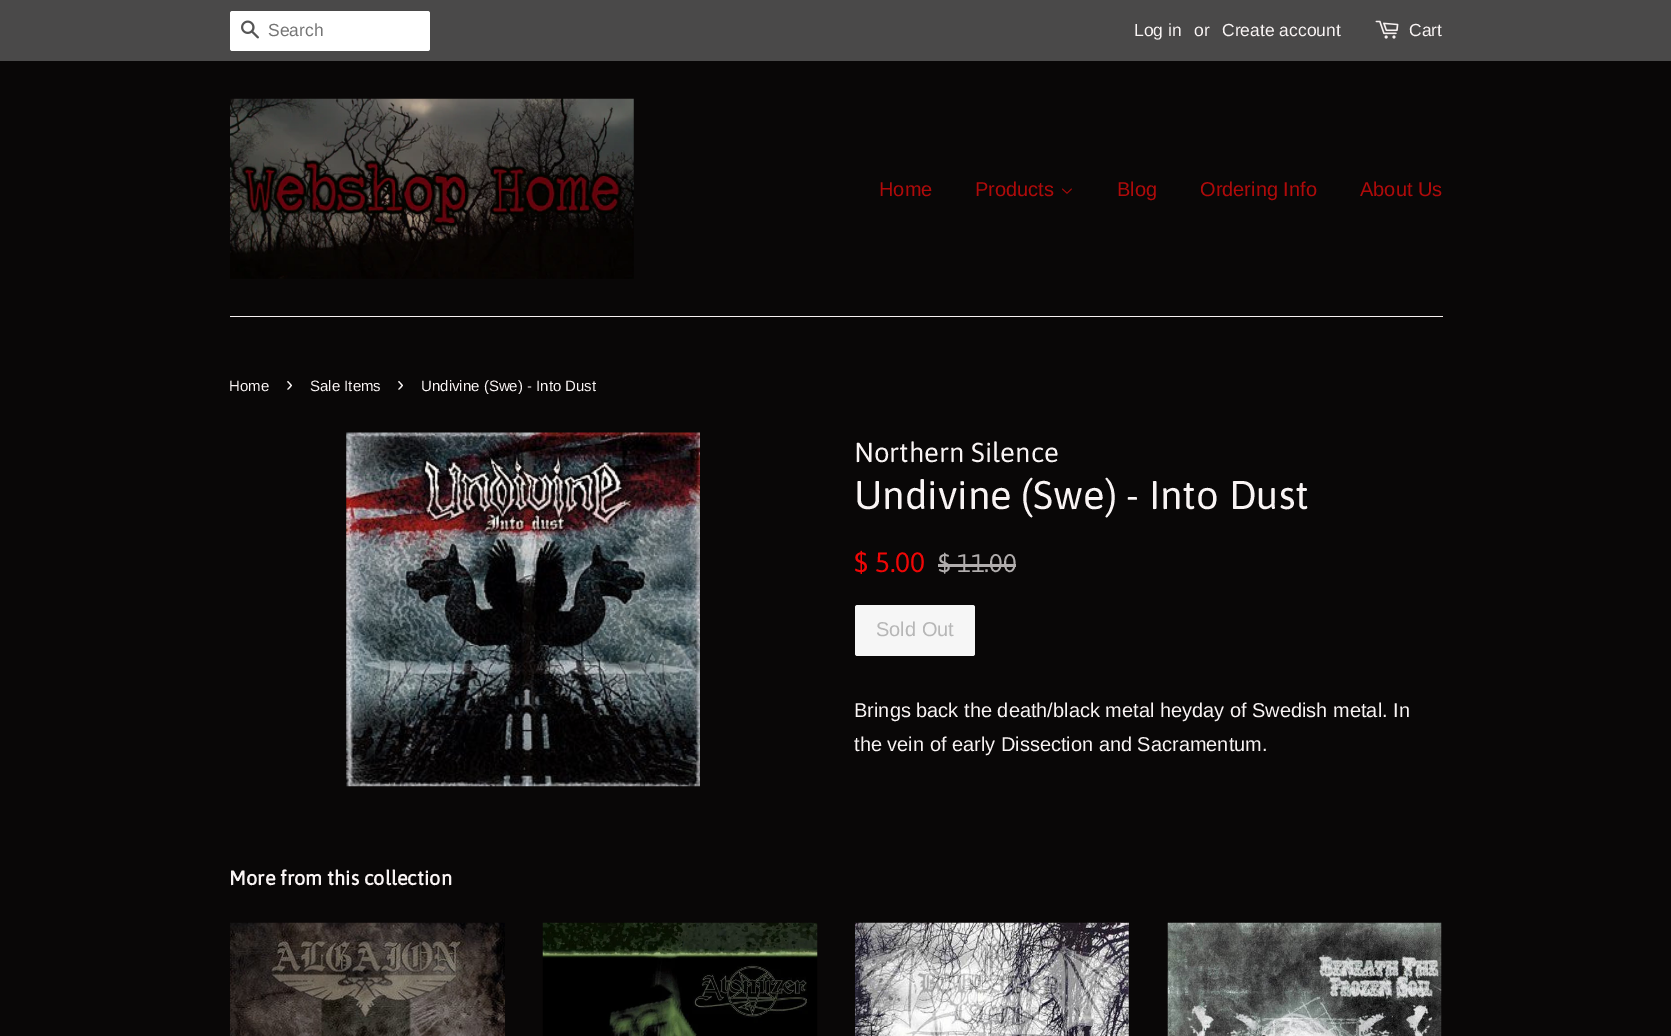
%!PS-Adobe-3.0
%%BoundingBox: 0 0 1671 1036
%%LanguageLevel: 3
%%Pages: 1
%%EndComments
%%BeginProlog
/setink { dup -16 bitshift 255 div exch dup -8 bitshift 255 and 255 div exch 255 and 255 div setrgbcolor } def
/usefont { [ exch dup neg 0 0 3 -1 roll 0 0 ] selectfont } def
/rrect { 5 dict begin { /r /h /w /y /x } { exch def } forall
  x r add y moveto x w add y 2 copy h add r arct x w add y h add x 1 index r arct
  x y h add x y r arct x y 2 copy exch w add exch r arct closepath end } def
/drawimage { 5 dict begin { /h /w /y /x /name } { exch def } forall
  gsave x y translate w h scale
  w h 8 [w 0 0 h 0 0] name (r) file false 3 colorimage grestore end } def
%%EndProlog
%%BeginSetup
<< /PageSize [1671 1036] >> setpagedevice
%%EndSetup
%%Page: 1 1
0 1036 translate 1 -1 scale
4 setmiterlimit
16#090707 setink
0 0 1671 1036 rectfill
16#4A4949 setink
0 0 1671 61 rectfill
16#FFFFFF setink
230 11 200 40 2.5 rrect fill
(img1.raw) 241 20 18 19 drawimage
/LiberationSans-Regular 17.5 usefont
16#757575 setink
268 36 moveto (Search) show
16#F9F4F4 setink
[
    [(Log in) 1134 36]
    [(or) 1194 36]
    [(Create account) 1222 36]
] { aload pop moveto show } forall
(img2.raw) 1375 20 24 19 drawimage
1409 36 moveto (Cart) show
16#F7F0F0 setink
230 316 1213 1 rectfill
(img3.raw) 230 98 404 181 drawimage
/LiberationSans-Regular 20 usefont
16#AF0A0A setink
879 196 moveto (Home) show
975 196 moveto (Products) show
(img4.raw) 1062 188 10 6 drawimage
[
    [(Blog) 1117 196]
    [(Ordering Info) 1200 196]
    [(About Us) 1360 196]
] { aload pop moveto show } forall
/LiberationSans-Regular 15 usefont
16#F9F4F4 setink
229 391 moveto (Home) show
/LiberationSans-Regular 21 usefont
286 391 moveto (›) show
/LiberationSans-Regular 15 usefont
310 391 moveto (Sale Items) show
/LiberationSans-Regular 21 usefont
397 391 moveto (›) show
/LiberationSans-Regular 15 usefont
421 391 moveto (Undivine \(Swe\) - Into Dust) show
(img5.raw) 346 432 354 355 drawimage
/Asap-Regular 27.5 usefont
854 462 moveto (Northern Silence) show
/Asap-Regular 40 usefont
854 509 moveto (Undivine \(Swe\) - Into Dust) show
/Asap-Regular 28 usefont
16#EF0606 setink
854 572 moveto ($ 5.00) show
/Asap-Regular 25.5 usefont
16#B1ADAD setink
938 572 moveto ($ 11.00) show
938 564 78 3 rectfill
16#F6F6F6 setink
855 605 120 51 2.5 rrect fill
/LiberationSans-Regular 20 usefont
16#B6B6B6 setink
876 636 moveto (Sold Out) show
16#F9F4F4 setink
854 717 moveto (Brings back the death/black metal heyday of Swedish metal. In) show
854 751 moveto (the vein of early Dissection and Sacramentum.) show
/Asap-Bold 20 usefont
229 885 moveto (More from this collection) show
(img6.raw) 230 922 275 114 drawimage
(img7.raw) 542 922 276 114 drawimage
(img8.raw) 855 922 274 114 drawimage
(img9.raw) 1167 922 275 114 drawimage
showpage
%%EOF
